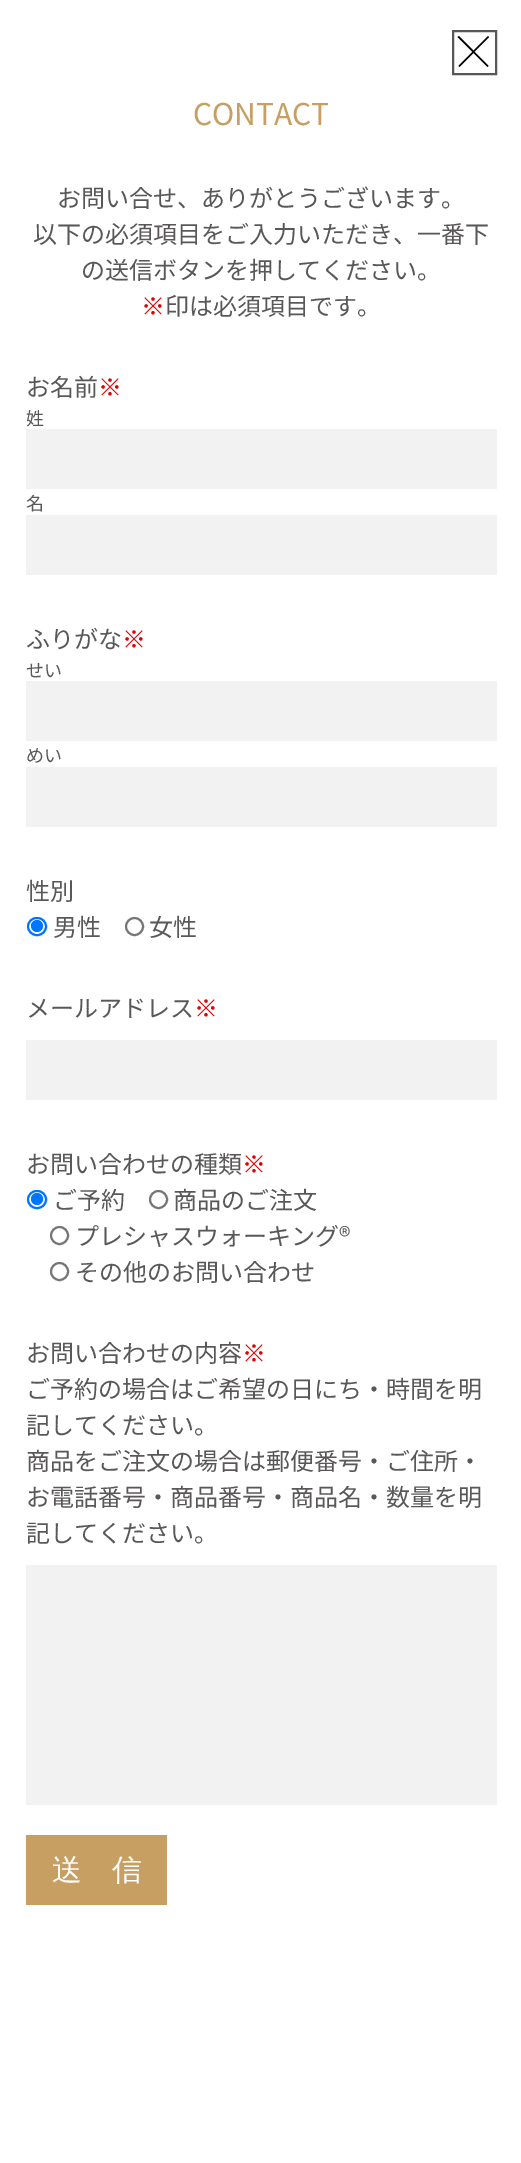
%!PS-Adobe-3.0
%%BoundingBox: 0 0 521 2163
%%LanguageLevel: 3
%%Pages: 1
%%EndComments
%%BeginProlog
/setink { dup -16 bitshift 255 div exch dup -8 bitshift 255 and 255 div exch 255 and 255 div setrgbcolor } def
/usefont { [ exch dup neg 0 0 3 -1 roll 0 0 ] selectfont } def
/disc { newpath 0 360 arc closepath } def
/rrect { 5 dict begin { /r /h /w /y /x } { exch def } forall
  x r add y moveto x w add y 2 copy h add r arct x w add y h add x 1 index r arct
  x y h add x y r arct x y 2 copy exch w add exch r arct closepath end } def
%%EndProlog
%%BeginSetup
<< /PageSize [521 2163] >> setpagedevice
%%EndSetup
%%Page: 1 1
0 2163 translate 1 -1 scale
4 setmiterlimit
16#FFFFFF setink
0 0 521 2163 rectfill
16#595758 setink
2 setlinewidth
453 31 43 43 rectstroke
16#000000 setink
459 36 moveto 488.5 66 lineto 487.5 67 lineto 457.5 37 lineto closepath fill
458.5 66 moveto 488 36 lineto 489 37 lineto 459.5 67 lineto closepath fill
/NotoSansJP-Regular 30 usefont
16#C79F62 setink
193 125 moveto (CONTACT) show
/NotoSansJP-Regular 24 usefont
16#595758 setink
[
    [(お問い合せ、ありがとうございます。) 57 207]
    [(以下の必須項目をご入力いただき、一番下) 33 243]
    [(の送信ボタンを押してください。) 81 279]
] { aload pop moveto show } forall
16#E40000 setink
141 315 moveto (※) show
16#595758 setink
165 315 moveto (印は必須項目です。) show
26 396 moveto (お名前) show
16#E40000 setink
98 396 moveto (※) show
/NotoSansJP-Regular 18 usefont
16#595758 setink
26 425 moveto (姓) show
16#F2F2F2 setink
26 429 471 60 rectfill
16#595758 setink
26 510 moveto (名) show
16#F2F2F2 setink
26 515 471 60 rectfill
/NotoSansJP-Regular 24 usefont
16#595758 setink
26 648 moveto (ふりがな) show
16#E40000 setink
122 648 moveto (※) show
/NotoSansJP-Regular 18 usefont
16#595758 setink
26 677 moveto (せい) show
16#F2F2F2 setink
26 681 471 60 rectfill
16#595758 setink
26 762 moveto (めい) show
16#F2F2F2 setink
26 767 471 60 rectfill
/NotoSansJP-Regular 24 usefont
16#595758 setink
26 900 moveto (性別) show
16#0075FF setink
28 918 18 17 8.5 rrect stroke
37 926 6 disc fill
16#595758 setink
53 936 moveto (男性) show
16#767676 setink
134.5 926.5 8.5 disc stroke
16#595758 setink
149 936 moveto (女性) show
26 1017 moveto (メールアドレス) show
16#E40000 setink
194 1017 moveto (※) show
16#F2F2F2 setink
26 1040 471 60 rectfill
16#595758 setink
26 1173 moveto (お問い合わせの種類) show
16#E40000 setink
242 1173 moveto (※) show
16#0075FF setink
28 1191 18 17 8.5 rrect stroke
37 1199 6 disc fill
16#595758 setink
53 1209 moveto (ご予約) show
16#767676 setink
158.5 1199.5 8.5 disc stroke
16#595758 setink
173 1209 moveto (商品のご注文) show
16#767676 setink
59.5 1235.5 8.5 disc stroke
16#595758 setink
75 1245 moveto (プレシャスウォーキング®) show
16#767676 setink
59.5 1271.5 8.5 disc stroke
16#595758 setink
75 1281 moveto (その他のお問い合わせ) show
26 1362 moveto (お問い合わせの内容) show
16#E40000 setink
242 1362 moveto (※) show
16#595758 setink
[
    [(ご予約の場合はご希望の日にち・時間を明) 26 1398]
    [(記してください。) 26 1434]
    [(商品をご注文の場合は郵便番号・ご住所・) 26 1470]
    [(お電話番号・商品番号・商品名・数量を明) 26 1506]
    [(記してください。) 26 1542]
] { aload pop moveto show } forall
16#F2F2F2 setink
26 1565 471 240 rectfill
16#C79F62 setink
26 1835 141 70 rectfill
/WenQuanYiZenHei-Medium 30 usefont
16#FFFFFF setink
52 1880 moveto (送　信) show
showpage
%%EOF
